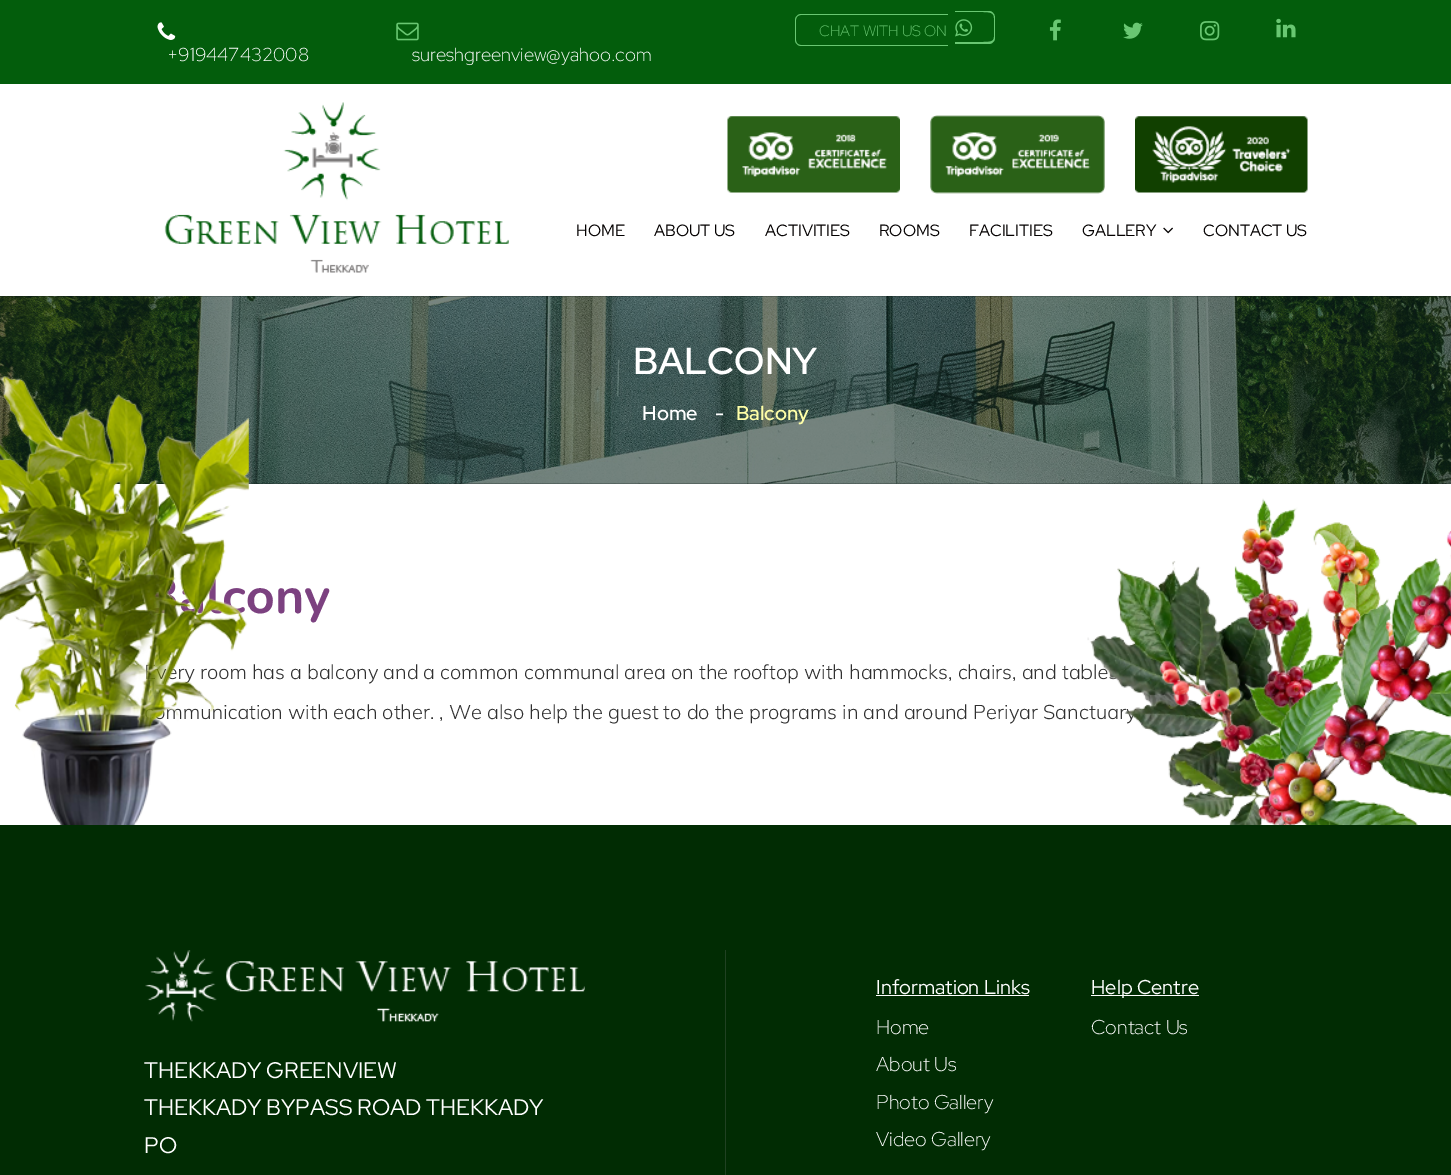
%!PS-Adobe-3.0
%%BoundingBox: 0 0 1451 1175
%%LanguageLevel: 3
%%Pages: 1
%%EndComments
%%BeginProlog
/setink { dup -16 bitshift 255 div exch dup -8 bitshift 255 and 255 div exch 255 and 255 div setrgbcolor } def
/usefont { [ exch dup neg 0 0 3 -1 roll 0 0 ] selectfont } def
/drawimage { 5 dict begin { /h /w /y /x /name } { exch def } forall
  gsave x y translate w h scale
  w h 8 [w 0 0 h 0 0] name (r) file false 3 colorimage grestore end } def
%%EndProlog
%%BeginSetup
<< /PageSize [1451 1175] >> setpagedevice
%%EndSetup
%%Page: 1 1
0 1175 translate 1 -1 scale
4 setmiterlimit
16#FFFFFF setink
0 0 1451 1175 rectfill
16#035D0C setink
0 0 1451 84 rectfill
16#69C772 setink
801 14 moveto 948 14 lineto 948 46 lineto 801 46 lineto 798 46 795 43 795 40 curveto 795 20 lineto 795 17 798 14 801 14 curveto closepath 801 15 moveto 948 15 lineto 948 45 lineto 801 45 lineto 798 45 796 43 796 40 curveto 796 20 lineto 796 17 798 15 801 15 curveto closepath eofill
/RedHatDisplay-Light 15 usefont
819 36 moveto (CHAT WITH US ON) show
955 11 moveto 989 11 lineto 992 11 995 14 995 18 curveto 995 38 lineto 995 41 992 44 989 44 curveto 955 44 lineto closepath 955 12 moveto 983 12 lineto 996 12 994 15 994 28 curveto 994 40 996 42 983 42 curveto 955 42 lineto closepath eofill
(img1.raw) 955 19 18 18 drawimage
(img2.raw) 1049 19 12 22 drawimage
(img3.raw) 1123 22 20 17 drawimage
(img4.raw) 1200 21 20 20 drawimage
(img5.raw) 1276 18 20 20 drawimage
(img6.raw) 157 22 19 18 drawimage
/RedHatDisplay-Light 18.75 usefont
16#FFFFFF setink
167 61 moveto (+919447432008) show
(img7.raw) 396 22 23 19 drawimage
412 61 moveto (sureshgreenview@yahoo.com) show
(img8.raw) 164 102 345 171 drawimage
(img9.raw) 727 116 173 77 drawimage
(img10.raw) 930 115 175 79 drawimage
(img11.raw) 1135 116 173 77 drawimage
/RedHatDisplay-Regular 16.25 usefont
16#030000 setink
[
    [(HOME) 576 236]
    [(ABOUT US) 654 236]
    [(ACTIVITIES) 765 236]
    [(ROOMS) 879 236]
    [(FACILITIES) 969 236]
    [(GALLERY) 1082 236]
] { aload pop moveto show } forall
(img12.raw) 1163 227 10 7 drawimage
1203 236 moveto (CONTACT US) show
(img13.raw) 0 296 1451 188 drawimage
/RedHatDisplay-SemiBold 37.5 usefont
16#FFFFFF setink
633 374 moveto (BALCONY) show
/RedHatDisplay-SemiBold 20 usefont
642 420 moveto (Home) show
715 420 moveto (-) show
16#FFFFA7 setink
736 420 moveto (Balcony) show
/Nunito-Bold 50 usefont
16#7C4180 setink
246 613 moveto (ony) show
/Mulish-Light 20 usefont
16#303030 setink
177 679 moveto (ry room has a balcony and a common communal area on the rooftop with hammocks, chairs, and table) show
165 719 moveto (mmunication with each other. , We also help the guest to do the programs in and around Periyar Sanctuary) show
16#012C03 setink
0 825 1451 350 rectfill
(img14.raw) 0 376 249 449 drawimage
(img15.raw) 1087 498 364 327 drawimage
16#204122 setink
725 950 1 225 rectfill
(img16.raw) 145 950 440 72 drawimage
/RedHatDisplay-Regular 22.5 usefont
16#FFFFFF setink
[
    [(THEKKADY GREENVIEW) 144 1078]
    [(THEKKADY BYPASS ROAD THEKKADY) 144 1115]
    [(PO) 144 1153]
] { aload pop moveto show } forall
/RedHatDisplay-Regular 20 usefont
876 994 moveto (Information Links) show
876 995 153 1 rectfill
/RedHatDisplay-Light 20 usefont
[
    [(Home) 876 1034]
    [(About Us) 876 1071]
    [(Photo Gallery) 876 1109]
    [(Video Gallery) 876 1146]
] { aload pop moveto show } forall
1091 995 108 1 rectfill
/RedHatDisplay-Regular 20 usefont
1091 994 moveto (Help Centre) show
/RedHatDisplay-Light 20 usefont
1091 1034 moveto (Contact Us) show
showpage
%%EOF
